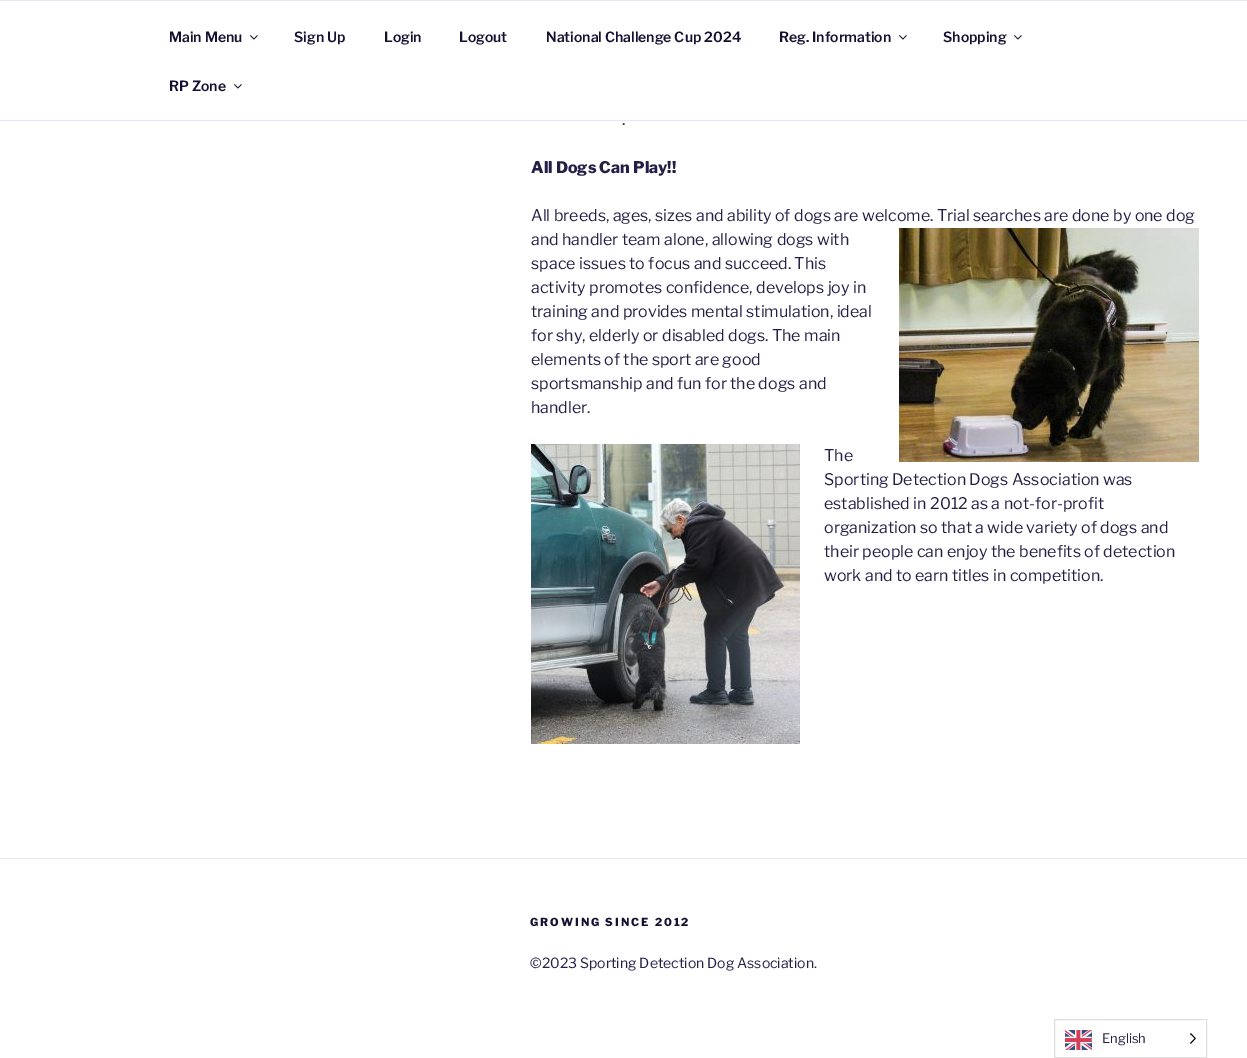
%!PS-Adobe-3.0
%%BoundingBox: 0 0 1247 1058
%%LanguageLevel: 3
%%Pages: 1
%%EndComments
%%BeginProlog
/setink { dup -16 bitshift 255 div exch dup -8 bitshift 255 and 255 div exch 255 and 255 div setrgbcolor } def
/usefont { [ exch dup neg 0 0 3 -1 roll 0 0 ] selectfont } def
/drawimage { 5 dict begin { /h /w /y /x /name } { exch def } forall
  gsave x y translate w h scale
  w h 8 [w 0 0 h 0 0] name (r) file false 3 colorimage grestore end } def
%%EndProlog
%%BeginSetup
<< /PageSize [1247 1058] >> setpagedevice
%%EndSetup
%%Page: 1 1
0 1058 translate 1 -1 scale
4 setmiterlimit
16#FFFFFF setink
0 0 1247 1058 rectfill
16#E7E4F6 setink
0 0 1247 1 rectfill
0 120 1247 1 rectfill
/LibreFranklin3-Thin 14 usefont
16#161132 setink
169 42 moveto (Main Menu) show
(img1.raw) 250 35 8 5 drawimage
[
    [(Sign Up) 294 42]
    [(Login) 384 42]
    [(Logout) 459 42]
    [(National Challenge Cup 2024) 546 42]
    [(Reg. Information) 779 42]
] { aload pop moveto show } forall
(img1.raw) 899 35 8 5 drawimage
943 42 moveto (Shopping) show
(img1.raw) 1014 35 8 5 drawimage
169 91 moveto (RP Zone) show
(img1.raw) 234 84 8 5 drawimage
/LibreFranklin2-Thin 16 usefont
16#251F47 setink
622 125 moveto (.) show
/LibreFranklin-Thin 16 usefont
531 173 moveto (All Dogs Can Play!!) show
/LibreFranklin2-Thin 16 usefont
531 221 moveto (All breeds, ages, sizes and ability of dogs are welcome. Trial searches are done by one dog) show
531 245 moveto (and handler team alone, allowing dogs with) show
(img2.raw) 899 228 300 234 drawimage
[
    [(space issues to focus and succeed. This) 531 269]
    [(activity promotes confidence, develops joy in) 531 293]
    [(training and provides mental stimulation, ideal) 531 317]
    [(for shy, elderly or disabled dogs. The main) 531 341]
    [(elements of the sport are good) 531 365]
    [(sportsmanship and fun for the dogs and) 531 389]
    [(handler.) 531 413]
] { aload pop moveto show } forall
(img3.raw) 531 444 269 300 drawimage
[
    [(The) 824 461]
    [(Sporting Detection Dogs Association was) 824 485]
    [(established in 2012 as a not-for-profit) 824 509]
    [(organization so that a wide variety of dogs and) 824 533]
    [(their people can enjoy the benefits of detection) 824 557]
    [(work and to earn titles in competition.) 824 581]
] { aload pop moveto show } forall
16#E7E4F6 setink
0 858 1247 1 rectfill
/LibreFranklin-Thin 11 usefont
16#161132 setink
530 926 moveto 2 0 (GROWING SINCE 2012) ashow
/LibreFranklin2-Thin 14 usefont
16#251F47 setink
530 968 moveto (©2023 Sporting Detection Dog Association.) show
16#E0E0E0 setink
1054.5 1019.5 152 38 rectstroke
(img4.raw) 1065 1030 27 20 drawimage
/LibreFranklin2-Thin 13 usefont
16#251F47 setink
1102 1043 moveto (English) show
(img5.raw) 1190 1033 6 11 drawimage
showpage
%%EOF
